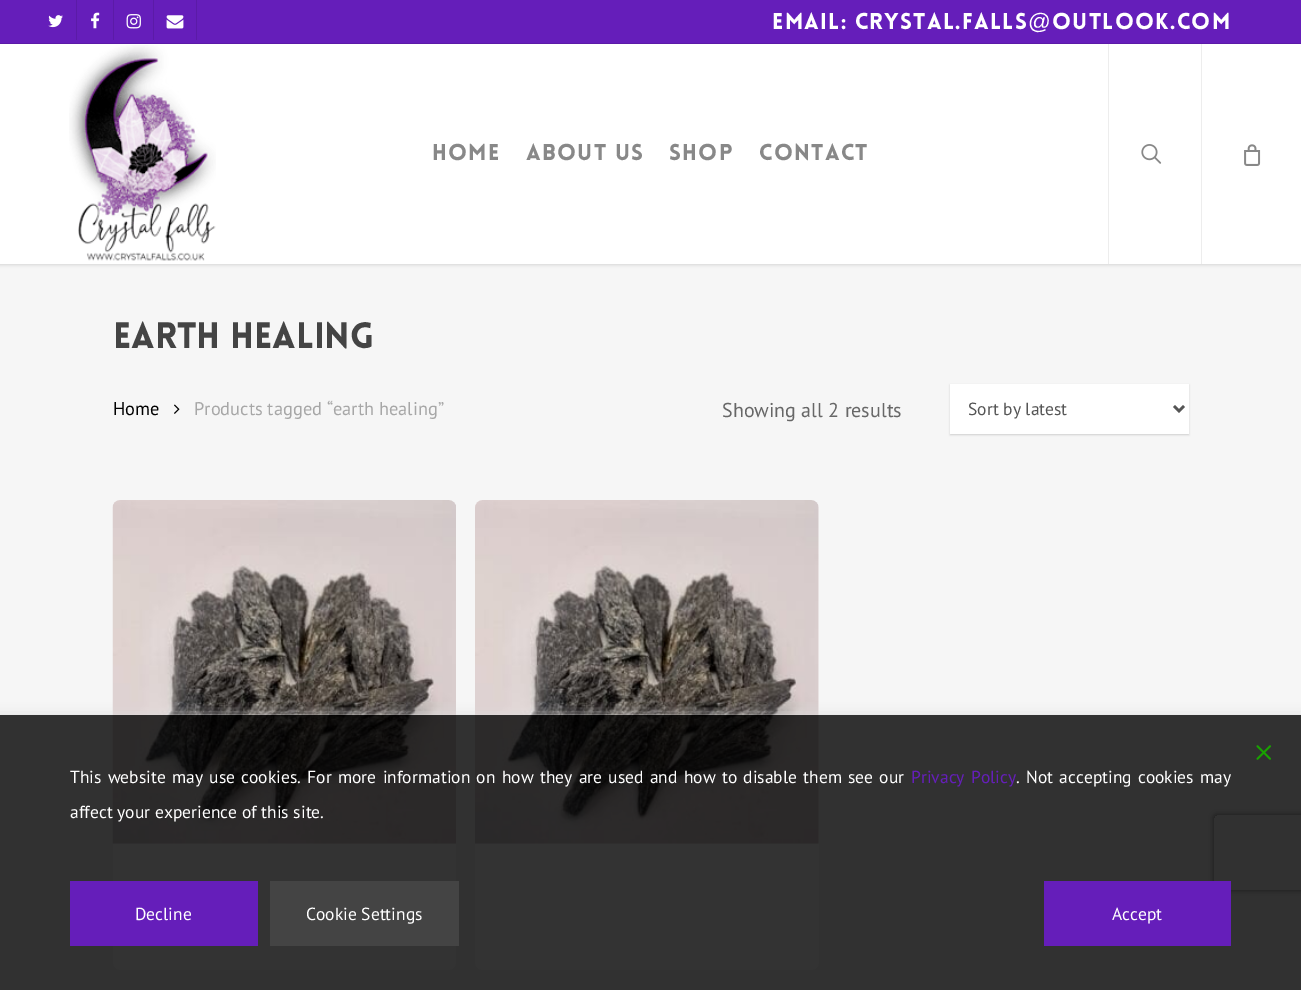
%!PS-Adobe-3.0
%%BoundingBox: 0 0 1301 990
%%LanguageLevel: 3
%%Pages: 1
%%EndComments
%%BeginProlog
/setink { dup -16 bitshift 255 div exch dup -8 bitshift 255 and 255 div exch 255 and 255 div setrgbcolor } def
/usefont { [ exch dup neg 0 0 3 -1 roll 0 0 ] selectfont } def
/setalpha { dup .setfillconstantalpha .setstrokeconstantalpha } def
/rrect { 5 dict begin { /r /h /w /y /x } { exch def } forall
  x r add y moveto x w add y 2 copy h add r arct x w add y h add x 1 index r arct
  x y h add x y r arct x y 2 copy exch w add exch r arct closepath end } def
/softshadow { 12 dict begin { /a /b /q /h /w /y /x } { exch def } forall gsave /was 0 def
  9 -2 -9 { dup b mul 4 div /e exch def 1 sub .425 mul 2.718 exch exp 1 add a .99 .min exch div /now exch def
    1 1 now sub 1 was sub div sub setalpha /was now def
    w h .min e 2 mul add 0 gt { x e sub y e sub w e 2 mul add h e 2 mul add
      q e add b .6 mul add w h .min 2 div e add .min 0 .max rrect fill } if } for grestore end } def
/drawimage { 5 dict begin { /h /w /y /x /name } { exch def } forall
  gsave x y translate w h scale
  w h 8 [w 0 0 h 0 0] name (r) file false 3 colorimage grestore end } def
%%EndProlog
%%BeginSetup
<< /PageSize [1301 990] /PageUsesTransparency true >> setpagedevice
%%EndSetup
%%Page: 1 1
0 .pushpdf14devicefilter
0 990 translate 1 -1 scale
4 setmiterlimit
16#F6F6F6 setink
0 0 1301 990 rectfill
16#000000 setink
0 0 1301 264 0 2 0.22 softshadow
[
    [0 44 1301 220 16#FFFFFF]
    [0 0 1301 43 16#651EBA]
    [0 43 1301 1 16#5B1BA7]
] { aload pop setink rectfill } forall
(img1.raw) 48 15 15 13 drawimage
76 0 1 40 rectfill
(img2.raw) 91 12 9 17 drawimage
113 0 1 40 rectfill
(img3.raw) 126 14 15 15 drawimage
196 0 1 40 rectfill
153 0 1 40 rectfill
(img4.raw) 166 15 18 14 drawimage
/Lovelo-Black 22.5 usefont
16#FFFFFF setink
772 29 moveto 1.25 0 (Email: crystal.falls) ashow
/LiberationSans-Regular 22.5 usefont
1028 29 moveto 1.25 0 (@) ashow
/Lovelo-Black 22.5 usefont
1052 29 moveto 1.25 0 (outlook.com) ashow
(img5.raw) 69 45 147 216 drawimage
16#888888 setink
432 160 moveto 1.25 0 (Home) ashow
526 160 moveto 1.25 0 (About Us) ashow
669 160 moveto 1.25 0 (Shop) ashow
759 160 moveto 1.25 0 (Contact) ashow
16#EDEDED setink
1108 44 1 220 rectfill
(img6.raw) 1141 144 21 20 drawimage
1201 44 1 220 rectfill
(img7.raw) 1244 144 17 22 drawimage
/Lovelo-Black 36 usefont
16#444444 setink
113 348 moveto (earth healing) show
/PTSans-Regular 18.4 usefont
16#000000 setink
113 415 moveto (Home) show
(img8.raw) 174 404 6 10 drawimage
16#A7A7A7 setink
194 415 moveto (Products tagged “earth healing”) show
/PTSans-Regular 20 usefont
16#676767 setink
722 417 moveto (Showing all 2 results) show
16#000000 setink
950 385 239 50 0 1 0.16 softshadow
16#FFFFFF setink
950 384 239 50 rectfill
16#555555 setink
2.5 setlinewidth
1174 406 moveto 1179 411 lineto 1184 406 lineto stroke
/PTSans-Regular 17.5 usefont
968 415 moveto (Sort by latest) show
16#FFFFFF setink
113 500 343 470 8 rrect fill
(img9.raw) 112 500 344 344 drawimage
475 500 344 470 8 rrect fill
(img10.raw) 475 500 344 344 drawimage
gsave
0 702 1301 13 rectclip
16#DDDDDD setink
-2 716 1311 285 0 7 1 softshadow
grestore
gsave
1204 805 moveto 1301 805 lineto 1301 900 lineto 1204 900 lineto closepath 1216.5 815 moveto 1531.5 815 lineto 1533 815 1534 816 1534 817.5 curveto 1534 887.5 lineto 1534 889 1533 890 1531.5 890 curveto 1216.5 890 lineto 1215 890 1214 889 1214 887.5 curveto 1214 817.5 lineto 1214 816 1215 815 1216.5 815 curveto closepath eoclip newpath
16#808080 setink
1214 815 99 75 2.5 3 1 softshadow
grestore
0.8 setalpha
16#000000 setink
0 715 1301 275 rectfill
1 setalpha
(img11.raw) 1256 745 15 15 drawimage
16#FFFFFF setink
70 783 moveto 1.6 0 32 (This website may use cookies. For more information on how they are used and how to disable them see our) widthshow
16#651EBA setink
911 783 moveto 1.5 0 32 (Privacy Policy) widthshow
16#FFFFFF setink
1016 783 moveto 1.5 0 32 (. Not accepting cookies may) widthshow
70 818 moveto (affect your experience of this site.) show
16#651EBA setink
70 881 188 65 rectfill
16#FFFFFF setink
135 920 moveto (Decline) show
16#444444 setink
270 881 189 65 rectfill
16#FFFFFF setink
306 920 moveto (Cookie Settings) show
16#651EBA setink
1044 881 187 65 rectfill
16#FFFFFF setink
1112 920 moveto (Accept) show
.poppdf14devicefilter showpage
%%EOF
